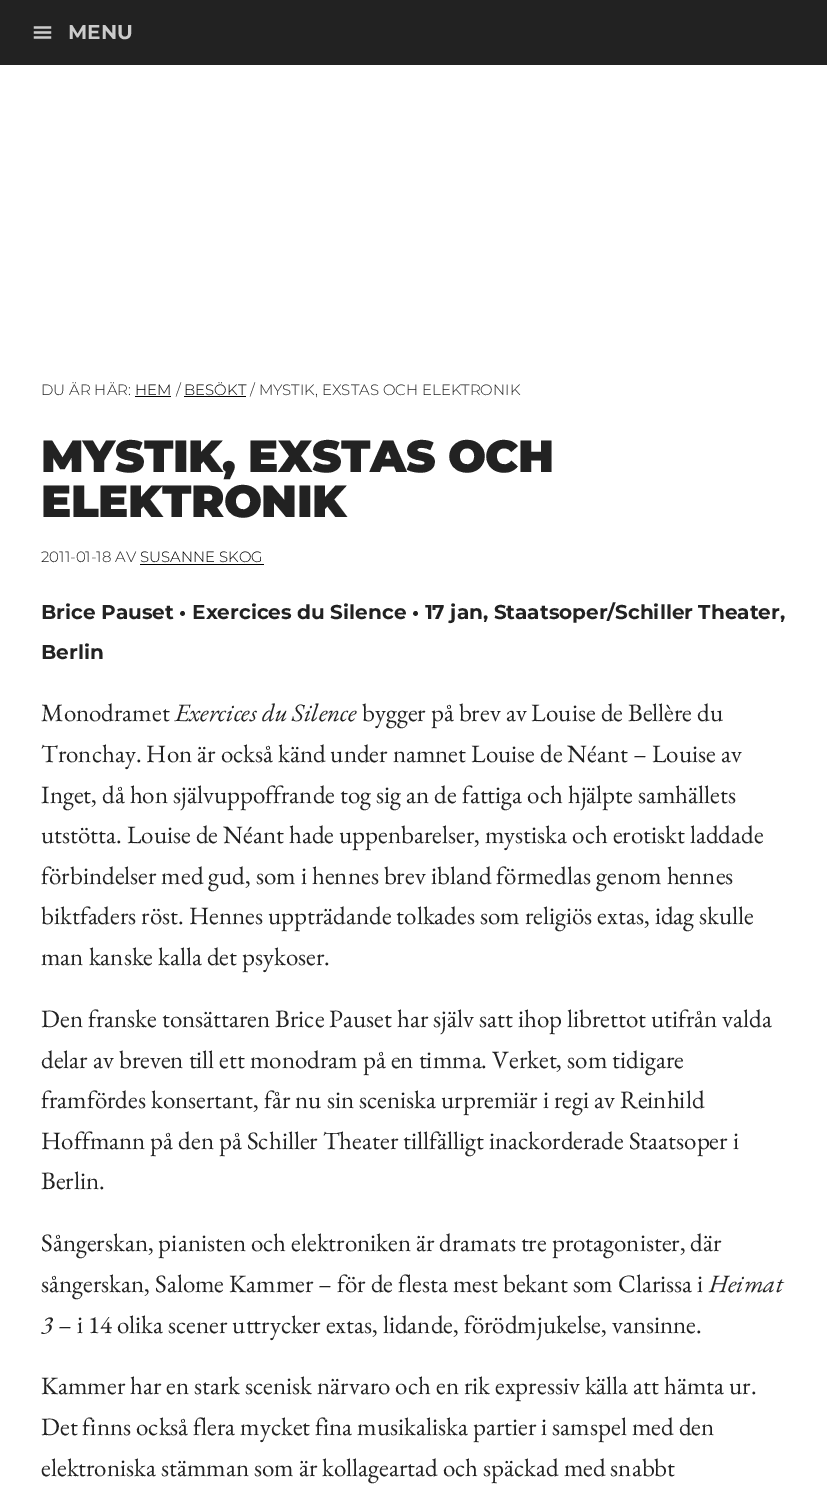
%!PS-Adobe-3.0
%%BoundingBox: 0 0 827 1502
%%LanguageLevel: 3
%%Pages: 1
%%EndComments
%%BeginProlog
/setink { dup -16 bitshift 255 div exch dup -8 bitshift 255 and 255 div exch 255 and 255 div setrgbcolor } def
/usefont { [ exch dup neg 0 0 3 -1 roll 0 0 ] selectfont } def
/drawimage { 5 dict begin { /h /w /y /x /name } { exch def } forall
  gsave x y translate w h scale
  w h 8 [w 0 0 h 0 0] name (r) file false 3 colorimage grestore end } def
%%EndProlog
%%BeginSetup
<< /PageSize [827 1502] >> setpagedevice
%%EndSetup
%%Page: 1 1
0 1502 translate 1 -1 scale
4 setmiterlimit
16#FFFFFF setink
0 0 827 1502 rectfill
16#222222 setink
0 0 827 65 rectfill
(img1.raw) 33 26 19 13 drawimage
/Montserrat-Bold 20 usefont
16#CCCCCC setink
68 39 moveto (MENU) show
/Montserrat-Light 15 usefont
16#222222 setink
41 395 moveto (DU ÄR HÄR:) show
16#000000 setink
135 395 moveto (HEM) show
135 396 36 1 rectfill
16#222222 setink
176 395 moveto (/) show
16#000000 setink
184 395 moveto (BESÖKT) show
184 396 62 1 rectfill
16#222222 setink
250 395 moveto (/ MYSTIK, EXSTAS OCH ELEKTRONIK) show
/Montserrat-Black 45 usefont
41 472 moveto -0.5 0 (MYSTIK, EXSTAS OCH) ashow
41 517 moveto -0.5 0 (ELEKTRONIK) ashow
/Montserrat-Light 15 usefont
41 562 moveto (2011-01-18 AV) show
16#000000 setink
140 562 moveto (SUSANNE SKOG) show
140 564 124 1 rectfill
/Montserrat-Bold 20 usefont
16#222222 setink
41 619 moveto (Brice Pauset • Exercices du Silence • 17 jan, Staatsoper/Schiller Theater,) show
41 659 moveto (Berlin) show
/EBGaramond-Regular 25 usefont
41 721 moveto (Monodramet) show
/EBGaramond-Italic 25 usefont
175 721 moveto (Exercices du Silence) show
/EBGaramond-Regular 25 usefont
[
    [(bygger på brev av Louise de Bellère du) 362 721]
    [(Tronchay. Hon är också känd under namnet Louise de Néant – Louise av) 41 762]
    [(Inget, då hon självuppoffrande tog sig an de fattiga och hjälpte samhällets) 41 803]
    [(utstötta. Louise de Néant hade uppenbarelser, mystiska och erotiskt laddade) 41 843]
    [(förbindelser med gud, som i hennes brev ibland förmedlas genom hennes) 41 884]
    [(biktfaders röst. Hennes uppträdande tolkades som religiös extas, idag skulle) 41 924]
    [(man kanske kalla det psykoser.) 41 965]
    [(Den franske tonsättaren Brice Pauset har själv satt ihop librettot utifrån valda) 41 1027]
    [(delar av breven till ett monodram på en timma. Verket, som tidigare) 41 1068]
    [(framfördes konsertant, får nu sin sceniska urpremiär i regi av Reinhild) 41 1108]
    [(Hoffmann på den på Schiller Theater tillfälligt inackorderade Staatsoper i) 41 1149]
    [(Berlin.) 41 1189]
    [(Sångerskan, pianisten och elektroniken är dramats tre protagonister, där) 41 1251]
    [(sångerskan, Salome Kammer – för de flesta mest bekant som Clarissa i) 41 1292]
] { aload pop moveto show } forall
/EBGaramond-Italic 25 usefont
709 1292 moveto (Heimat) show
41 1333 moveto (3) show
/EBGaramond-Regular 25 usefont
[
    [(– i 14 olika scener uttrycker extas, lidande, förödmjukelse, vansinne.) 58 1333]
    [(Kammer har en stark scenisk närvaro och en rik expressiv källa att hämta ur.) 41 1394]
    [(Det finns också flera mycket fina musikaliska partier i samspel med den) 41 1435]
    [(elektroniska stämman som är kollageartad och späckad med snabbt) 41 1476]
] { aload pop moveto show } forall
showpage
%%EOF
